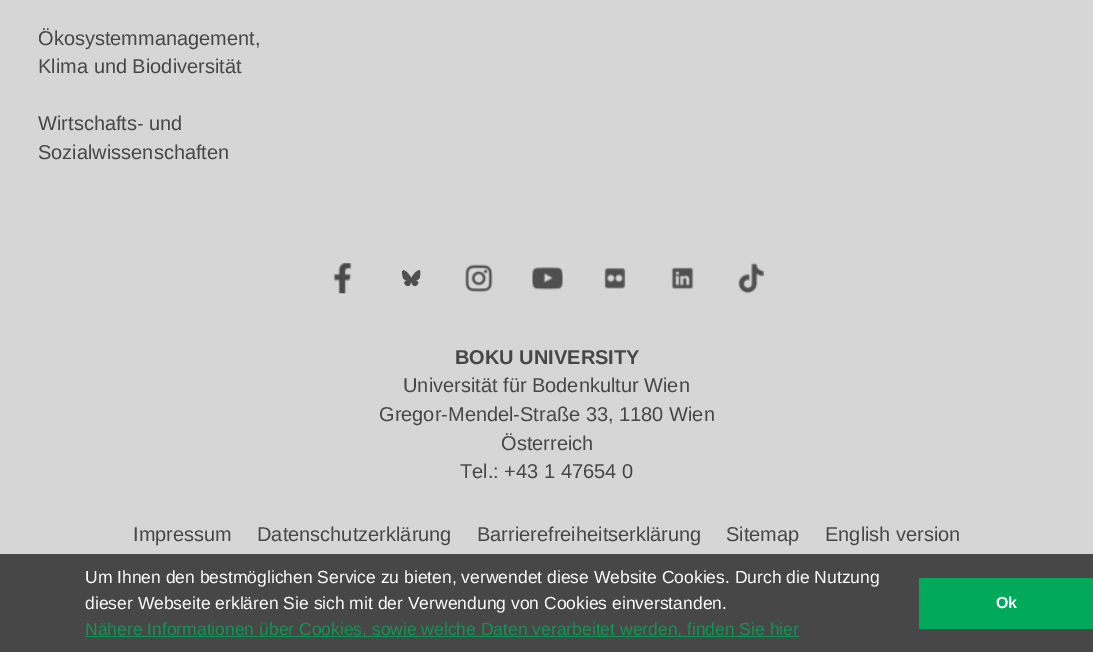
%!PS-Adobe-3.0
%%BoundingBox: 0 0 1093 652
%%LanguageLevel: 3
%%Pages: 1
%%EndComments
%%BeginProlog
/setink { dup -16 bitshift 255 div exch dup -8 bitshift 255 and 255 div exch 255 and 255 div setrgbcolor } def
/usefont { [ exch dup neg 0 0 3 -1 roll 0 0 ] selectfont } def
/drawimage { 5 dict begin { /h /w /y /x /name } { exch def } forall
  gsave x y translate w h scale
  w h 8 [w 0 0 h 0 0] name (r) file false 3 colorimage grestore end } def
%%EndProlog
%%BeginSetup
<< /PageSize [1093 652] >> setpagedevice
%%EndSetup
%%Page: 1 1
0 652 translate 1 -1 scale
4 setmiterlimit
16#D6D6D6 setink
0 0 1093 652 rectfill
/LiberationSans-Regular 20 usefont
16#474747 setink
[
    [(Ökosystemmanagement,) 38 45]
    [(Klima und Biodiversität) 38 73]
    [(Wirtschafts- und) 38 130]
    [(Sozialwissenschaften) 38 159]
] { aload pop moveto show } forall
(img1.raw) 333 263 19 31 drawimage
(img2.raw) 402 270 19 17 drawimage
(img3.raw) 465 264 28 29 drawimage
(img4.raw) 532 266 31 24 drawimage
(img5.raw) 604 267 22 22 drawimage
(img6.raw) 671 267 23 23 drawimage
(img7.raw) 738 263 27 31 drawimage
/LiberationSans-Bold 20 usefont
455 364 moveto (BOKU UNIVERSITY) show
/LiberationSans-Regular 20 usefont
[
    [(Universität für Bodenkultur Wien) 403 392]
    [(Gregor-Mendel-Straße 33, 1180 Wien) 379 421]
    [(Österreich) 501 450]
    [(Tel.: +43 1 47654 0) 460 478]
    [(Impressum) 133 541]
    [(Datenschutzerklärung) 257 541]
    [(Barrierefreiheitserklärung) 477 541]
    [(Sitemap) 726 541]
    [(English version) 825 541]
] { aload pop moveto show } forall
0 554 1093 98 rectfill
/LiberationSans-Regular 17.5 usefont
16#FFFFFF setink
85 583 moveto (Um Ihnen den bestmöglichen Service zu bieten, verwendet diese Website Cookies. Durch die Nutzung) show
85 609 moveto (dieser Webseite erklären Sie sich mit der Verwendung von Cookies einverstanden.) show
16#0E9656 setink
85 636 714 1 rectfill
85 635 moveto (Nähere Informationen über Cookies, sowie welche Daten verarbeitet werden, finden Sie hier) show
16#00AA5A setink
919 578 174 51 rectfill
/LiberationSans-Bold 16 usefont
16#FFFFFF setink
996 608 moveto (Ok) show
showpage
%%EOF
